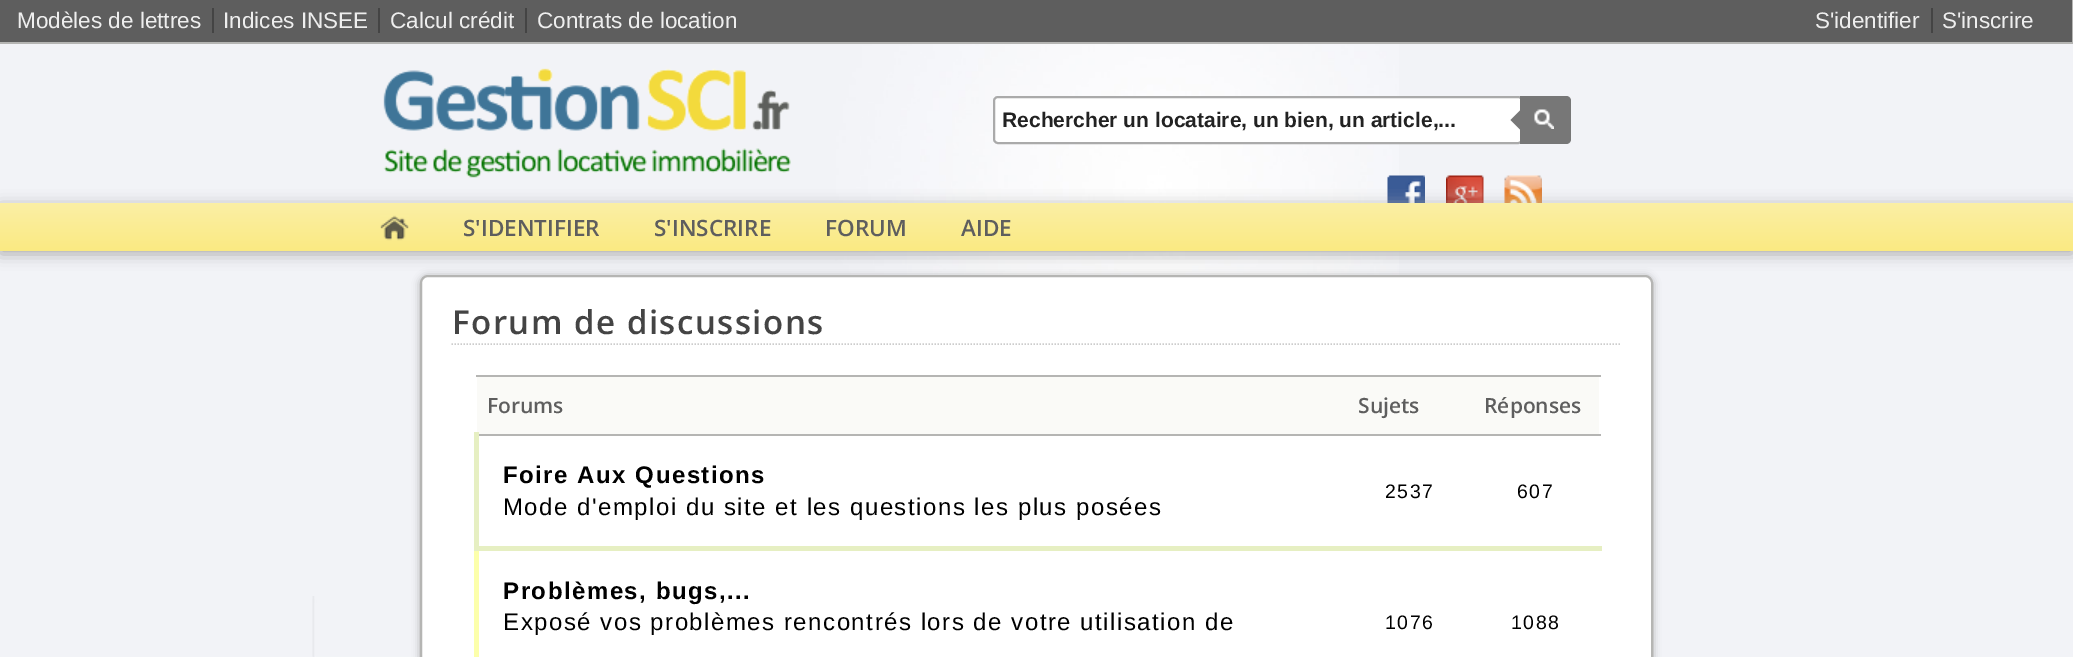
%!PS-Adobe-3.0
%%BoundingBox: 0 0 2073 657
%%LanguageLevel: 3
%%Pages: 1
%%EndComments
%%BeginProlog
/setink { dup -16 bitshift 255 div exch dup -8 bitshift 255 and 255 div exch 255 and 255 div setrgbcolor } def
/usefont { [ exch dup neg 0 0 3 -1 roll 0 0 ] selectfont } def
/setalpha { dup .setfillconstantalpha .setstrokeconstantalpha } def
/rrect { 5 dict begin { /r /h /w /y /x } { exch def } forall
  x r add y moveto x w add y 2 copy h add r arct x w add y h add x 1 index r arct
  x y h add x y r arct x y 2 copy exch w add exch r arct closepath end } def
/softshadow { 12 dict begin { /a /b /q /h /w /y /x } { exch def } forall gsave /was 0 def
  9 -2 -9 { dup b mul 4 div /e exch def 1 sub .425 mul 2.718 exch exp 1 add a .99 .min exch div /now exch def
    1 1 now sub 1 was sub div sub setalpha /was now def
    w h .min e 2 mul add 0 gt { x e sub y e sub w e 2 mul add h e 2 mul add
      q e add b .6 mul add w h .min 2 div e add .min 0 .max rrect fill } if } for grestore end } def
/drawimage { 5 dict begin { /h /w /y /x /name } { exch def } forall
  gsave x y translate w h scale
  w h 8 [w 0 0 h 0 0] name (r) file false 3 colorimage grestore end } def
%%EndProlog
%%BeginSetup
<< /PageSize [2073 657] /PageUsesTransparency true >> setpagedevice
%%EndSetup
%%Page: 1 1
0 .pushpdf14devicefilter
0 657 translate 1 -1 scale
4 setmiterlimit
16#F2F3F7 setink
0 0 2073 657 rectfill
(img1.raw) 312 44 1087 613 drawimage
[
    [0 0 2072 42 16#5E5E5E]
    [2072 0 1 44 16#B5B5B3]
    [0 42 2073 2 16#B5B5B3]
    [212 8 2 25 16#444444]
] { aload pop setink rectfill } forall
/LiberationSans-Regular 22.5 usefont
16#EEEEEE setink
17 28 moveto (Modèles de lettres) show
16#444444 setink
378 8 2 25 rectfill
16#EEEEEE setink
223 28 moveto (Indices INSEE) show
16#444444 setink
525 8 2 25 rectfill
16#EEEEEE setink
[
    [(Calcul crédit) 390 28]
    [(Contrats de location) 537 28]
    [(S'identifier) 1815 28]
] { aload pop moveto show } forall
16#444444 setink
1931 8 2 25 rectfill
16#EEEEEE setink
1942 28 moveto (S'inscrire) show
(img2.raw) 383 68 408 110 drawimage
16#FFFFFF setink
994 97 528 46 4 rrect gsave fill grestore
16#AAAAAA setink
2 setlinewidth
stroke
/LiberationSans-Bold 21 usefont
16#222222 setink
1002 127 moveto (Rechercher un locataire, un bien, un article,...) show
16#777777 setink
1520 96 moveto 1566 96 lineto 1569 96 1571 98 1571 101 curveto 1571 139 lineto 1571 142 1569 144 1566 144 curveto 1520 144 lineto closepath fill
(img3.raw) 1534 109 20 20 drawimage
1522.5 108 moveto 1522.5 132 lineto 1510.5 120 lineto closepath fill
(img4.raw) 1387 175 38 28 drawimage
(img5.raw) 1446 175 38 28 drawimage
(img6.raw) 1504 175 38 28 drawimage
16#AAAAAA setink
420 276 1233 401 8 4 1 softshadow
16#FFFFFF setink
421 276 1231 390 7 rrect gsave fill grestore
16#B5B5B3 setink
stroke
16#AAAAAA setink
0 206 2073 48 0 7.5 1 softshadow
gsave 0 203 moveto 2073 203 lineto 2073 251 lineto 0 251 lineto closepath clip newpath
<< /ShadingType 2 /ColorSpace /DeviceRGB /Coords [1037 251 1037 203] /Extend [true true] /Function << /FunctionType 2 /Domain [0 1] /C0 [0.98 0.918 0.51] /C1 [0.98 0.937 0.647] /N 1 >> >> shfill grestore
(img7.raw) 380 215 29 26 drawimage
/OpenSans-SemiBold 22.5 usefont
16#5E5E5E setink
[
    [(S'IDENTIFIER) 463 236]
    [(S'INSCRIRE) 654 236]
    [(FORUM) 825 236]
    [(AIDE) 961 236]
] { aload pop moveto show } forall
16#CCCCCC setink
1.5 setlinewidth
[1.5 1.5] 0 setdash
451.5 344 moveto 1621.5 344 lineto stroke
/OpenSans-SemiBold 33 usefont
16#444444 setink
452 334 moveto 1.5 0 (Forum de discussions) ashow
16#B5B5B3 setink
476 434 1125 2 rectfill
16#FAFAF7 setink
477 377 1122 57 rectfill
/OpenSans-SemiBold 21 usefont
16#5E5E5E setink
487 413 moveto (Forums) show
1358 413 moveto (Sujets) show
16#B5B5B3 setink
476 375 1125 2 rectfill
16#5E5E5E setink
1484 413 moveto (Réponses) show
[
    [474 546 5 111 16#FCFFAB]
    [474 546 1128 5 16#E6EFC2]
    [474 432 5 119 16#E6EFC2]
] { aload pop setink rectfill } forall
/LiberationSans-Bold 24 usefont
16#000000 setink
503 483 moveto 1.5 0 (Foire Aux Questions) ashow
/LiberationSans-Regular 24 usefont
503 515 moveto 1.5 0 (Mode d'emploi du site et les questions les plus posées) ashow
/LiberationSans-Regular 19.5 usefont
1385 498 moveto 1.5 0 (2537) ashow
1517 498 moveto 1.5 0 (607) ashow
/LiberationSans-Bold 24 usefont
503 599 moveto 1.5 0 (Problèmes, bugs,...) ashow
/LiberationSans-Regular 24 usefont
503 630 moveto 1.5 0 (Exposé vos problèmes rencontrés lors de votre utilisation de) ashow
/LiberationSans-Regular 19.5 usefont
1385 629 moveto 1.5 0 (1076) ashow
1511 629 moveto 1.5 0 (1088) ashow
.poppdf14devicefilter showpage
%%EOF
